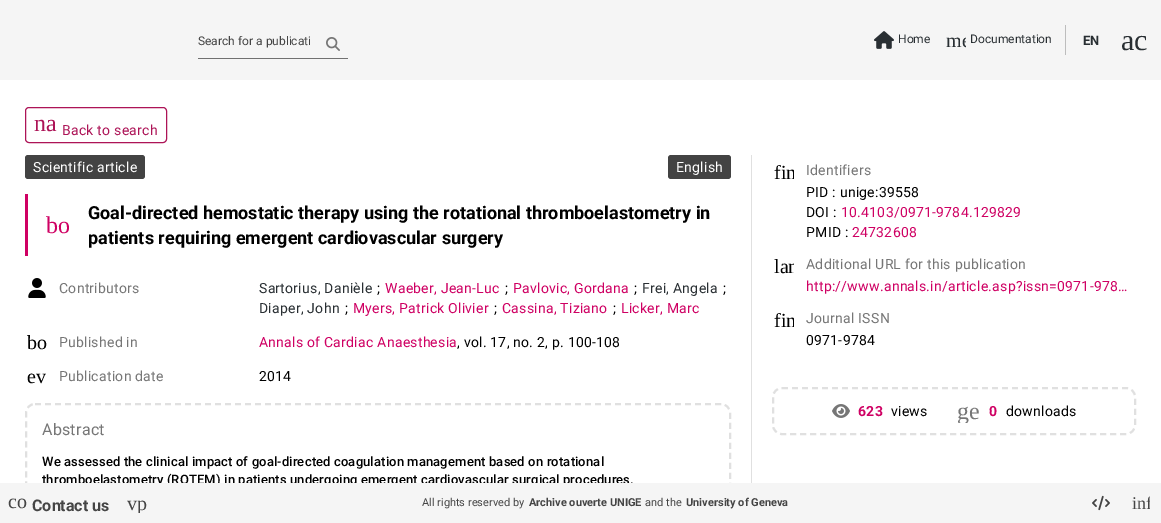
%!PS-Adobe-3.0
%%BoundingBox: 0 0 1161 523
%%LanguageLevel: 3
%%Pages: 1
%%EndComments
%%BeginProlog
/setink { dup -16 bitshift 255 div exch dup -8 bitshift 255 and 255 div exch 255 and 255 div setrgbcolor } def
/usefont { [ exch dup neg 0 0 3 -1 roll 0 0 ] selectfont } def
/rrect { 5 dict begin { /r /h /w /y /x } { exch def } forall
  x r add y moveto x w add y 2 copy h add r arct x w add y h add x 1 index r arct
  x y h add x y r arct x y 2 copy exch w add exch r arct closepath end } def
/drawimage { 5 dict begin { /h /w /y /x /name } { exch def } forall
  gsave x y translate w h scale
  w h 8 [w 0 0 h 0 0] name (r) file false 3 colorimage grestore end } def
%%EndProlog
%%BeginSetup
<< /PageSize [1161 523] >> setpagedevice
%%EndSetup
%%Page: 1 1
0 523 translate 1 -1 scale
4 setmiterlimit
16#FFFFFF setink
0 0 1161 523 rectfill
16#F5F5F5 setink
0 0 1161 80 rectfill
/Roboto-Regular 12 usefont
16#454545 setink
198 45 moveto (Search for a publicati) show
(img1.raw) 326 37 14 14 drawimage
16#717171 setink
198 58 150 1 rectfill
(img2.raw) 874 31 20 18 drawimage
16#292F33 setink
898 43 moveto (Home) show
gsave
946 30 20 20 rectclip
/LiberationSerif-Regular 20 usefont
946 47 moveto (me) show
grestore
970 43 moveto (Documentation) show
16#BDBDBD setink
1065 25 1 30 rectfill
/Roboto-Bold 13 usefont
16#292F33 setink
1083 45 moveto (EN) show
/LiberationSerif-Regular 30 usefont
1121 50 moveto (ac) show
16#AD1457 setink
25.5 107.5 141 35 3.5 rrect stroke
/LiberationSerif-Regular 24 usefont
34 131 moveto (na) show
/Roboto-Regular 14 usefont
62 135 moveto 0.25 0 (Back to search) ashow
16#E0E0E0 setink
751 155 1 328 rectfill
16#434343 setink
25 155 120 24 3 rrect fill
16#FFFFFF setink
33 172 moveto 0.25 0 (Scientific article) ashow
16#434343 setink
668 155 63 24 3 rrect fill
16#FFFFFF setink
676 172 moveto 0.25 0 (English) ashow
16#CF0063 setink
25 194 3 62 rectfill
/LiberationSerif-Regular 24 usefont
46 233 moveto (bo) show
/Roboto-Bold 18 usefont
16#000000 setink
88 219 moveto (Goal-directed hemostatic therapy using the rotational thromboelastometry in) show
88 244 moveto (patients requiring emergent cardiovascular surgery) show
(img3.raw) 28 278 18 20 drawimage
/Roboto-Regular 14 usefont
16#767676 setink
59 293 moveto 0.25 0 (Contributors) ashow
16#292F33 setink
259 293 moveto 0.25 0 (Sartorius, Danièle) ashow
16#000000 setink
377 293 moveto 0.25 0 (;) ashow
16#CF0063 setink
385 293 moveto 0.25 0 (Waeber, Jean-Luc) ashow
16#000000 setink
505 293 moveto 0.25 0 (;) ashow
16#CF0063 setink
513 293 moveto 0.25 0 (Pavlovic, Gordana) ashow
16#000000 setink
634 293 moveto 0.25 0 (;) ashow
16#292F33 setink
642 293 moveto 0.25 0 (Frei, Angela) ashow
16#000000 setink
723 293 moveto 0.25 0 (;) ashow
16#292F33 setink
259 313 moveto 0.25 0 (Diaper, John) ashow
16#000000 setink
345 313 moveto 0.25 0 (;) ashow
16#CF0063 setink
353 313 moveto 0.25 0 (Myers, Patrick Olivier) ashow
16#000000 setink
494 313 moveto 0.25 0 (;) ashow
16#CF0063 setink
502 313 moveto 0.25 0 (Cassina, Tiziano) ashow
16#000000 setink
613 313 moveto 0.25 0 (;) ashow
16#CF0063 setink
621 313 moveto 0.25 0 (Licker, Marc) ashow
/LiberationSerif-Regular 20 usefont
16#000000 setink
27 349 moveto (bo) show
/Roboto-Regular 14 usefont
16#767676 setink
59 347 moveto 0.25 0 (Published in) ashow
16#CF0063 setink
259 347 moveto 0.25 0 (Annals of Cardiac Anaesthesia) ashow
16#000000 setink
457 347 moveto 0.25 0 (, vol. 17, no. 2, p. 100-108) ashow
/LiberationSerif-Regular 20 usefont
27 383 moveto (ev) show
/Roboto-Regular 14 usefont
16#767676 setink
59 381 moveto 0.25 0 (Publication date) ashow
16#000000 setink
259 381 moveto 0.25 0 (2014) ashow
16#E0E0E0 setink
2 setlinewidth
[6 4] 0 setdash
35 404 moveto 721 404 lineto 726 404 730 408 730 413 curveto 730 503 lineto 730 508 726 512 721 512 curveto 35 512 lineto 30 512 26 508 26 503 curveto 26 413 lineto 26 408 30 404 35 404 curveto closepath stroke
/Roboto-Regular 16 usefont
16#767676 setink
42 435 moveto 0.25 0 (Abstract) ashow
/Roboto-Medium 13 usefont
16#000000 setink
42 466 moveto 0.15 0 (We assessed the clinical impact of goal-directed coagulation management based on rotational) ashow
42 484 moveto 0.15 0 (thromboelastometry \(ROTEM\) in patients undergoing emergent cardiovascular surgical procedures.) ashow
gsave
774 162 20 20 rectclip
/LiberationSerif-Regular 20 usefont
774 179 moveto (fin) show
grestore
/Roboto-Regular 14 usefont
16#767676 setink
806 175 moveto 0.25 0 (Identifiers) ashow
16#000000 setink
806 197 moveto 0.25 0 (PID : unige:39558) ashow
806 217 moveto 0.25 0 (DOI :) ashow
16#CF0063 setink
841 217 moveto 0.25 0 (10.4103/0971-9784.129829) ashow
16#000000 setink
806 237 moveto 0.25 0 (PMID :) ashow
16#CF0063 setink
852 237 moveto 0.25 0 (24732608) ashow
gsave
774 256 20 20 rectclip
/LiberationSerif-Regular 20 usefont
16#000000 setink
774 273 moveto (lan) show
grestore
16#767676 setink
806 269 moveto 0.25 0 (Additional URL for this publication) ashow
16#CF0063 setink
806 291 moveto 0.25 0 (http://www.annals.in/article.asp?issn=0971-978…) ashow
gsave
774 310 20 20 rectclip
/LiberationSerif-Regular 20 usefont
16#000000 setink
774 327 moveto (fin) show
grestore
16#767676 setink
806 323 moveto 0.25 0 (Journal ISSN) ashow
16#000000 setink
806 345 moveto 0.25 0 (0971-9784) ashow
16#E0E0E0 setink
782 388 moveto 1126 388 lineto 1131 388 1135 392 1135 397 curveto 1135 425 lineto 1135 430 1131 434 1126 434 curveto 782 434 lineto 777 434 773 430 773 425 curveto 773 397 lineto 773 392 777 388 782 388 curveto closepath stroke
(img4.raw) 832 404 18 14 drawimage
/Roboto-Bold 14 usefont
16#CF0063 setink
858 416 moveto 0.25 0 (623) ashow
/Roboto-Regular 14 usefont
16#000000 setink
891 416 moveto 0.25 0 (views) ashow
gsave
957 399 24 24 rectclip
/LiberationSerif-Regular 24 usefont
16#767676 setink
957 419 moveto (ge) show
grestore
/Roboto-Bold 14 usefont
16#CF0063 setink
989 416 moveto 0.25 0 (0) ashow
/Roboto-Regular 14 usefont
16#000000 setink
1006 416 moveto 0.25 0 (downloads) ashow
16#F5F5F5 setink
0 483 1161 40 rectfill
/LiberationSerif-Regular 20 usefont
16#454545 setink
8 508 moveto (co) show
/Roboto-Bold 16 usefont
32 511 moveto (Contact us) show
gsave
127 493 20 20 rectclip
/LiberationSerif-Regular 20 usefont
127 510 moveto (vp) show
grestore
/Roboto-Regular 11 usefont
422 506 moveto (All rights reserved by) show
/Roboto-Bold 11 usefont
529 506 moveto (Archive ouverte UNIGE) show
/Roboto-Regular 11 usefont
645 506 moveto (and the) show
/Roboto-Bold 11 usefont
686 506 moveto (University of Geneva) show
(img5.raw) 1092 495 18 16 drawimage
gsave
1132 494 18 18 rectclip
/LiberationSerif-Regular 18 usefont
1132 509 moveto (inf) show
grestore
showpage
%%EOF
